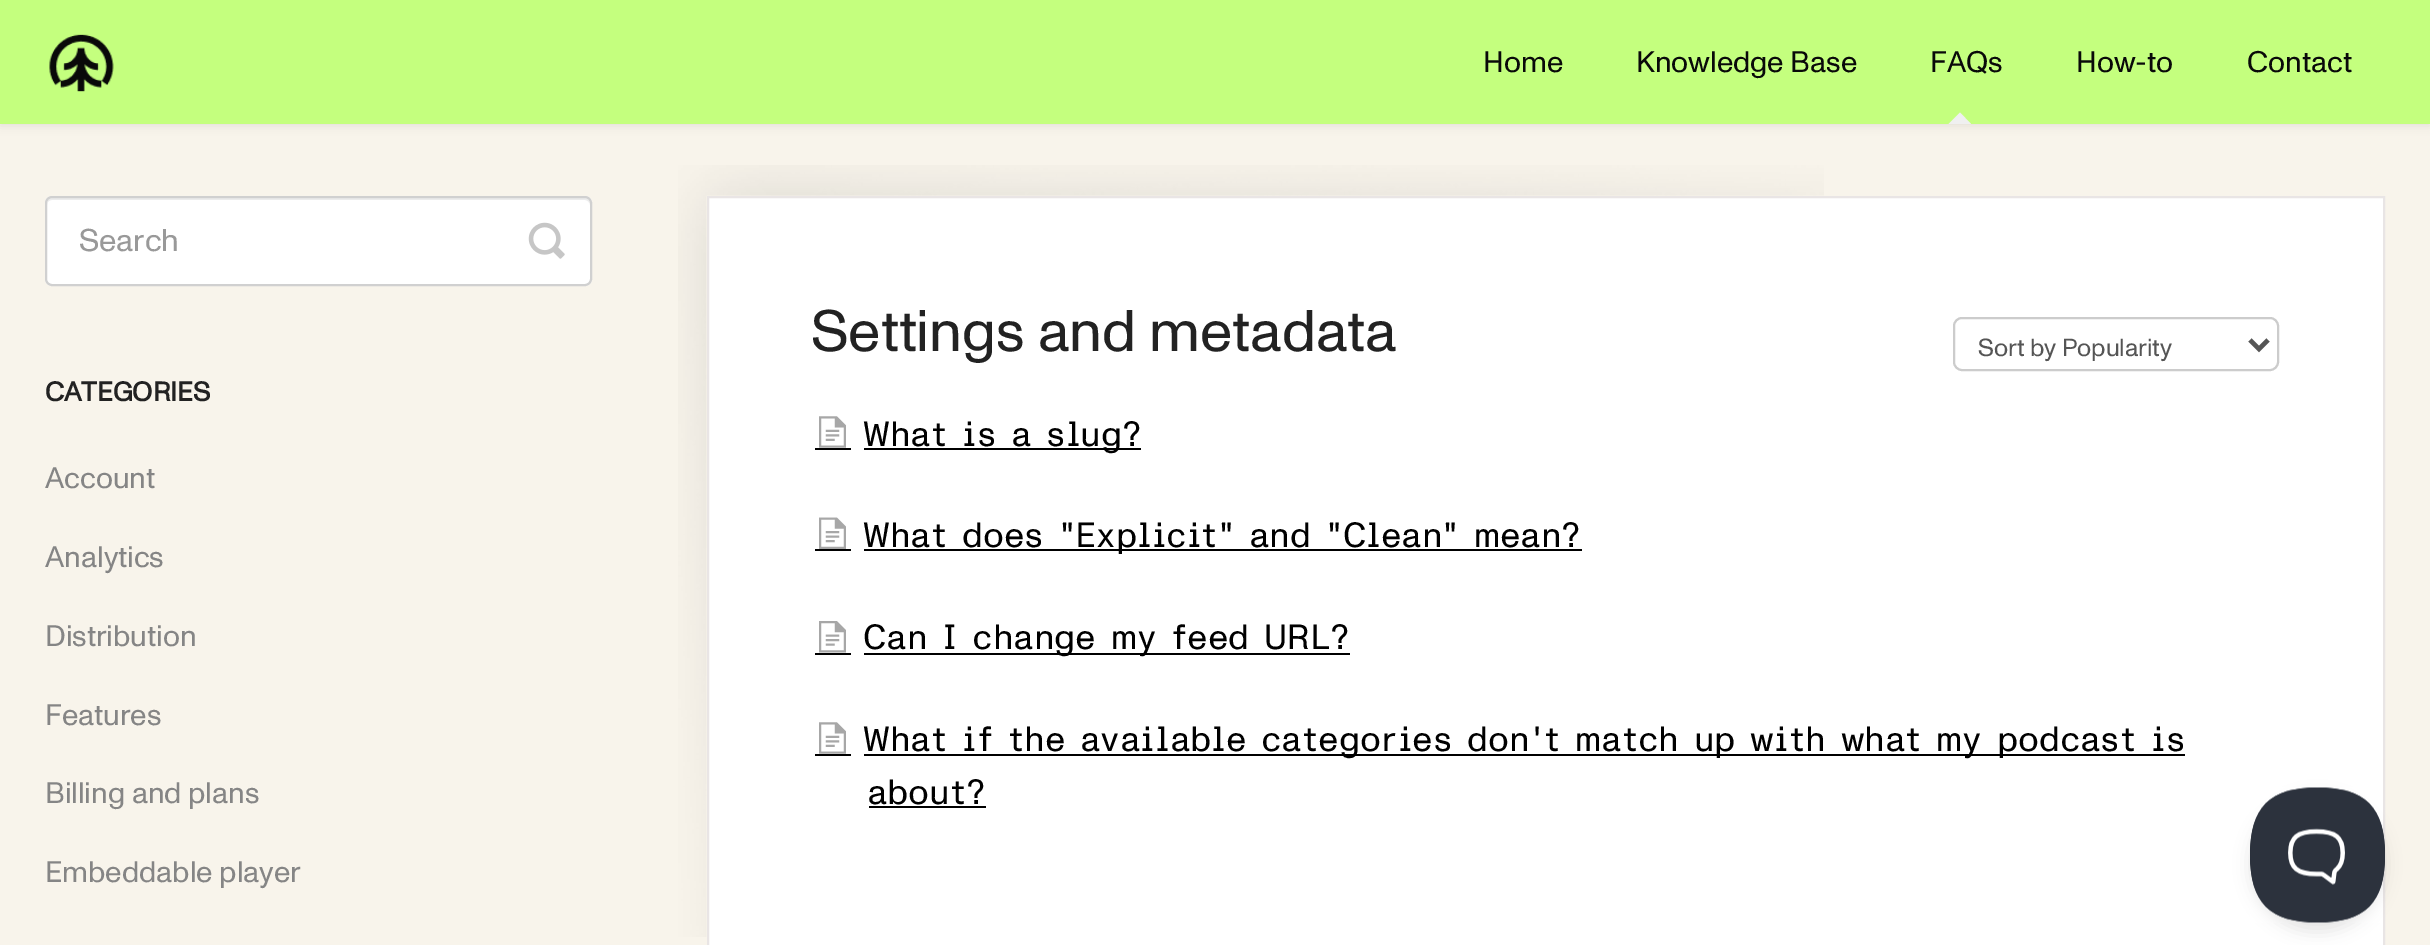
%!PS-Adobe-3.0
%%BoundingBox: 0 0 2430 945
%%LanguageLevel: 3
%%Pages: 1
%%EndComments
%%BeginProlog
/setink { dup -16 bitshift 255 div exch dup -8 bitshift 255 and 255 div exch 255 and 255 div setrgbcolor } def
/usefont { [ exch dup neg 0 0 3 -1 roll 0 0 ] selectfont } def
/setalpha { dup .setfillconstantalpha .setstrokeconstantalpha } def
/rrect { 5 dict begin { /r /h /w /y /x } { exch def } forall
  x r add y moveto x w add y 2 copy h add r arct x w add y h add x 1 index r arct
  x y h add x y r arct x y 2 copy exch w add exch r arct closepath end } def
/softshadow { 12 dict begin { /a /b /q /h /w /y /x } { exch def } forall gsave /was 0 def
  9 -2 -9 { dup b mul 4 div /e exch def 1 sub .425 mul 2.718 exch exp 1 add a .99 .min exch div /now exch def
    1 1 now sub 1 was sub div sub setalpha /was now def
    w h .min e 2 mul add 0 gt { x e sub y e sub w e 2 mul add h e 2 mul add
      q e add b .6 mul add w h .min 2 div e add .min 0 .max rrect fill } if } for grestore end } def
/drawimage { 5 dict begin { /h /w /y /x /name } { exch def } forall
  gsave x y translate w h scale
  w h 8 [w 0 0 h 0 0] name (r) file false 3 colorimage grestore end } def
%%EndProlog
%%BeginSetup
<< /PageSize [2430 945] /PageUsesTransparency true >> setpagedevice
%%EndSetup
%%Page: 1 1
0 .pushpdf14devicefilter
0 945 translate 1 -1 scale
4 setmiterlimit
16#F8F4EB setink
0 0 2430 945 rectfill
16#000000 setink
0 2 2430 124 0 4.5 0.07 softshadow
16#C4FF7E setink
0 0 2430 124 rectfill
(img1.raw) 49 34 65 58 drawimage
/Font-Regular 29.75 usefont
16#090909 setink
[
    [(Home) 1483 72]
    [(Knowledge Base) 1636 72]
    [(FAQs) 1930 72]
] { aload pop moveto show } forall
16#F0F0F0 setink
1971 124 moveto 1948.5 124 lineto 1960 112.5 lineto closepath fill
16#090909 setink
2076 72 moveto (How-to) show
2247 72 moveto (Contact) show
16#FFFFFF setink
45 196 547 90 7 rrect fill
16#ECECEC setink
52 200 moveto 585 200 lineto 587 200 590 202 590 205 curveto 590 202 589 198 585 198 curveto 52 198 lineto 48 198 47 202 47 205 curveto 47 202 49 200 52 200 curveto closepath fill
16#D0D0D0 setink
2 setlinewidth
46 197 545 88 6 rrect stroke
/Font-Regular 31.5 usefont
16#999999 setink
79 251 moveto (Search) show
(img2.raw) 528 222 37 37 drawimage
/Font-Bold 27 usefont
16#222222 setink
45 401 moveto (CATEGORIES) show
/Font-Regular 29.75 usefont
16#858585 setink
[
    [(Account) 45 488]
    [(Analytics) 45 567]
    [(Distribution) 45 646]
    [(Features) 45 725]
    [(Billing and plans) 45 803]
    [(Embeddable player) 45 882]
] { aload pop moveto show } forall
(img3.raw) 678 165 1146 772 drawimage
16#FFFFFF setink
708 197 moveto 2384 197 lineto 2384 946 lineto 708 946 lineto closepath gsave fill grestore
16#E9E5E5 setink
stroke
/Font-Regular 58.5 usefont
16#222222 setink
811 351 moveto (Settings and metadata) show
16#CCCCCC setink
1954 318 324 52 8 rrect stroke
16#555555 setink
4.5 setlinewidth
2250 340 moveto 2259 349 lineto 2268 340 lineto stroke
/Font-Regular 24.75 usefont
1978 356 moveto (Sort by Popularity) show
(img4.raw) 819 416 27 32 drawimage
16#000000 setink
864 448 277 2 rectfill
/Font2-Regular 35.1 usefont
863 446 moveto (What is a slug?) show
815 448 36 2 rectfill
(img5.raw) 819 517 27 32 drawimage
864 549 718 2 rectfill
863 547 moveto (What does "Explicit" and "Clean" mean?) show
815 549 36 2 rectfill
(img6.raw) 819 621 27 32 drawimage
864 653 486 2 rectfill
863 649 moveto (Can I change my feed URL?) show
815 653 36 2 rectfill
(img4.raw) 819 722 27 32 drawimage
864 754 1321 2 rectfill
863 751 moveto (What if the available categories don't match up with what my podcast is) show
815 754 36 2 rectfill
867 804 moveto (about?) show
869 806 117 2 rectfill
2250 797 135 135 67.5 8 0.1 softshadow
(img7.raw) 2250 787 135 136 drawimage
.poppdf14devicefilter showpage
%%EOF
